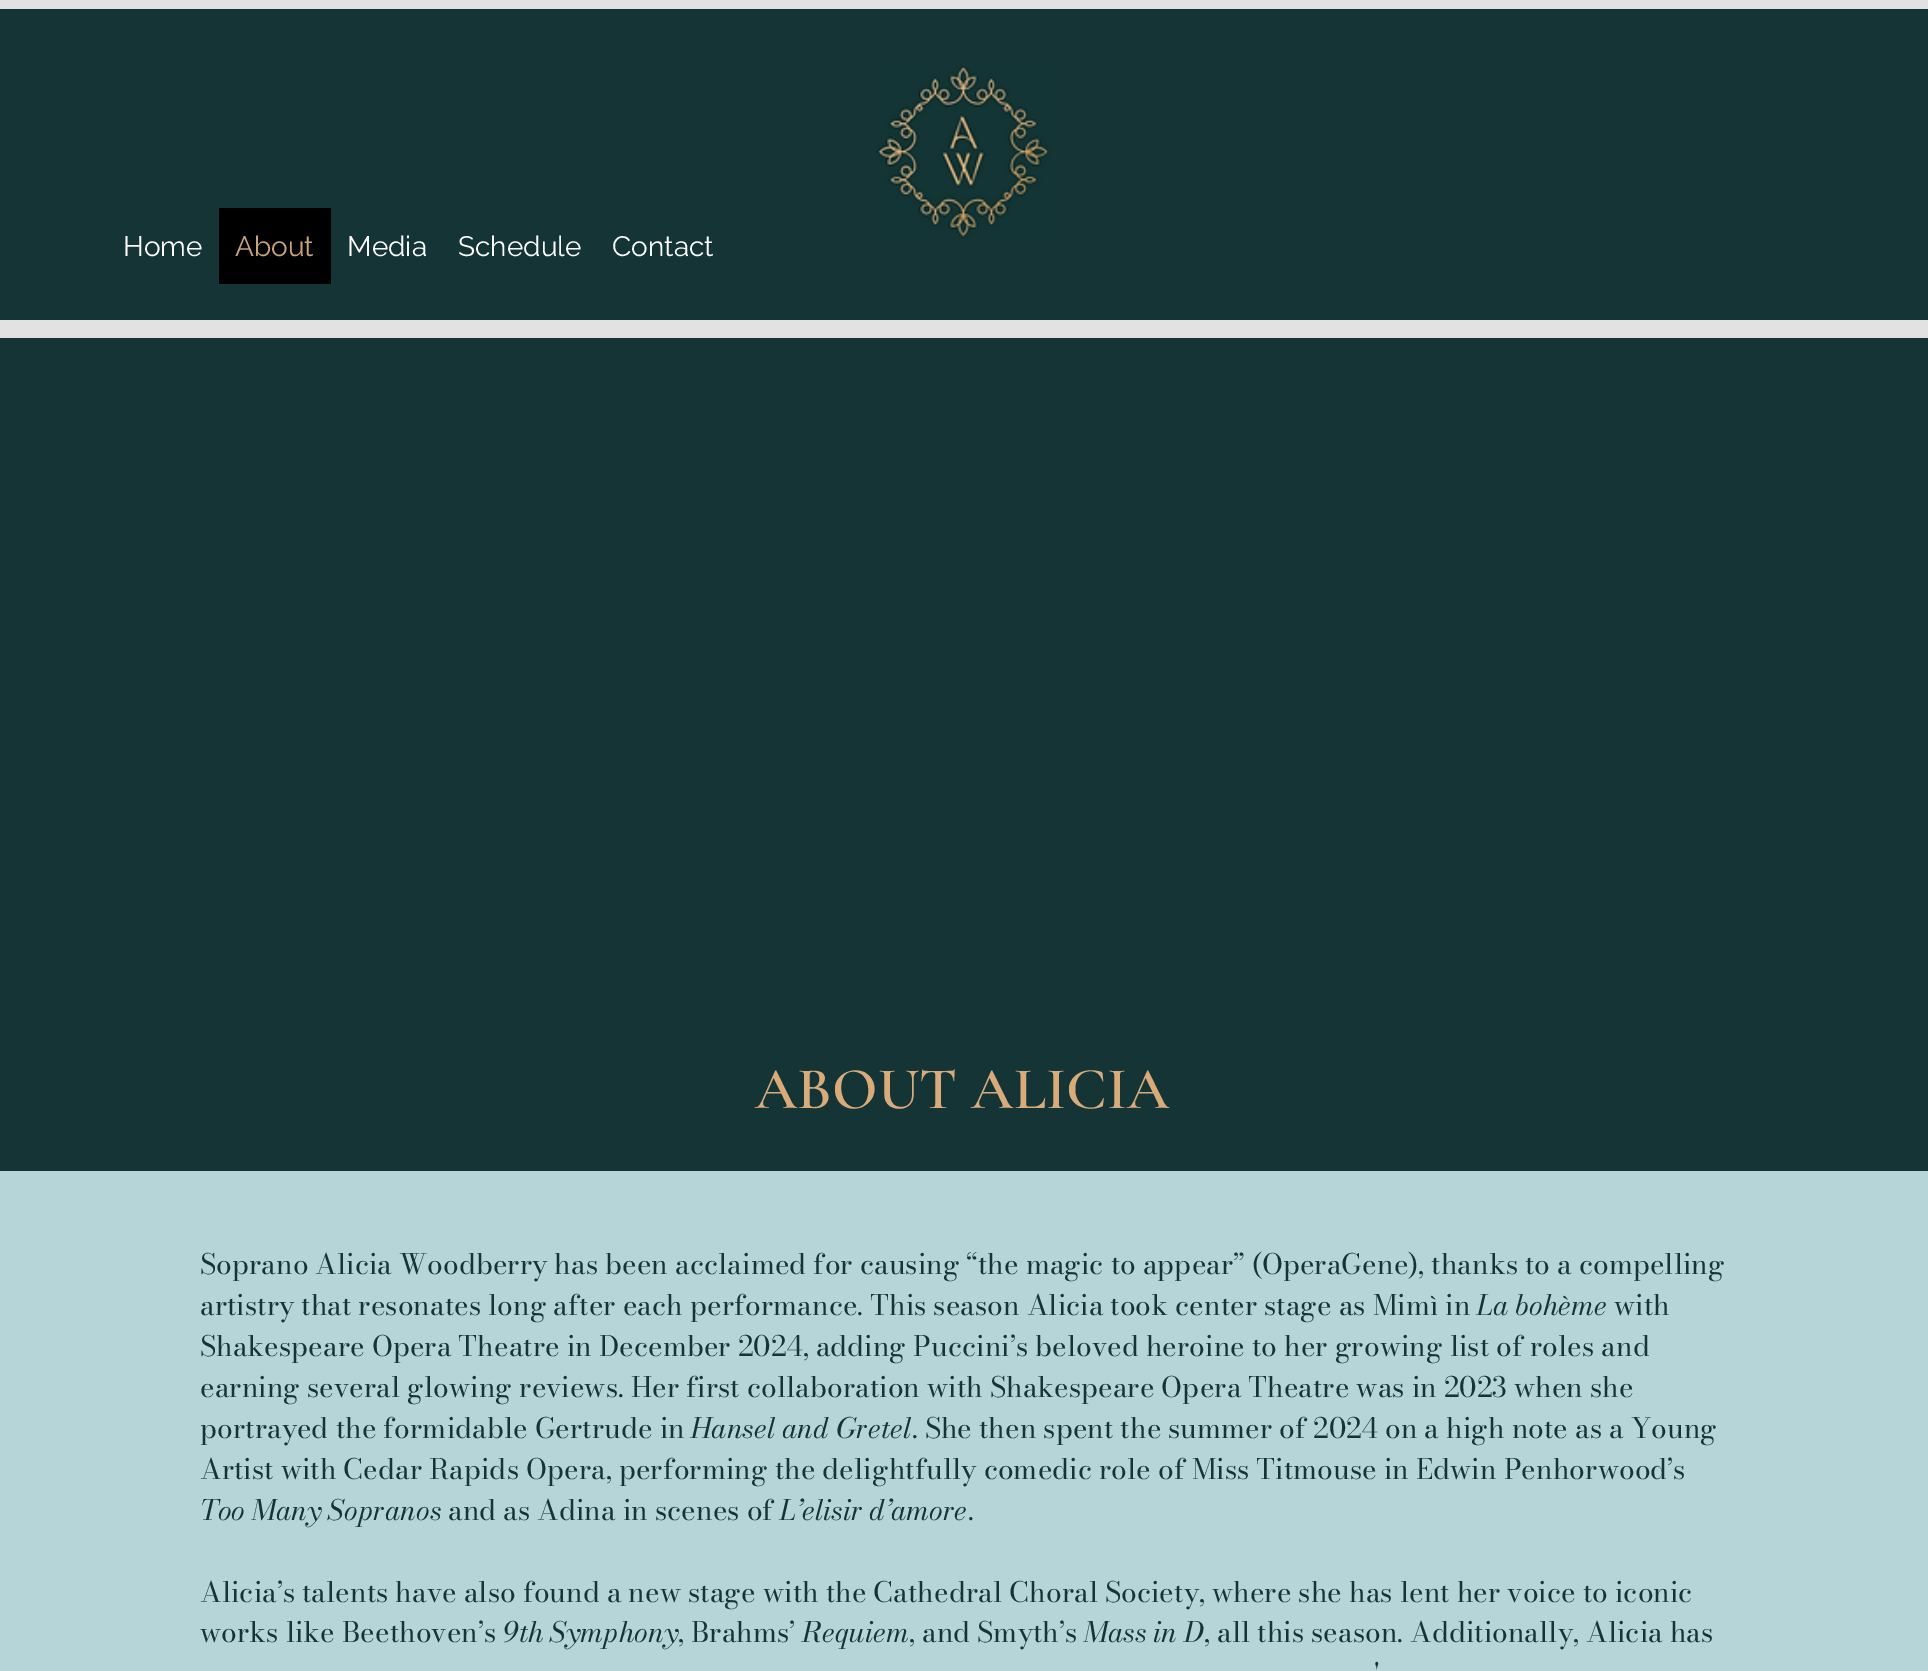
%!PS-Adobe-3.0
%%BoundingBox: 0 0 1928 1671
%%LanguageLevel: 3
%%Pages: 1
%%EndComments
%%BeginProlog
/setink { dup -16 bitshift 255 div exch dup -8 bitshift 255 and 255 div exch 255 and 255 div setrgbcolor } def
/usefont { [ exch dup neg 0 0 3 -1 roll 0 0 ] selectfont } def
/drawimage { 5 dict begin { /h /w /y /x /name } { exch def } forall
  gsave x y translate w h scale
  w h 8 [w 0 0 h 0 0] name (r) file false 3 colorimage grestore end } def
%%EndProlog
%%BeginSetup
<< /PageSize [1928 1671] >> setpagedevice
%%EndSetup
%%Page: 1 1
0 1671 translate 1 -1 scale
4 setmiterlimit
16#E2E2E2 setink
0 0 1928 1671 rectfill
16#143436 setink
0 9 1928 311 rectfill
(img1.raw) 876 65 174 174 drawimage
/Raleway-Regular 28 usefont
16#FFFFFF setink
123 256 moveto (Home) show
16#000000 setink
219 208 112 76 rectfill
16#C9A577 setink
235 256 moveto (About) show
16#FFFFFF setink
[
    [(Media) 347 256]
    [(Schedule) 458 256]
    [(Contact) 612 256]
] { aload pop moveto show } forall
16#143436 setink
0 338 1928 833 rectfill
/CormorantGaramond-SemiBold 59.5 usefont
16#DAAB7A setink
755 1108 moveto (ABOUT ALICIA) show
16#B5D5D8 setink
0 1171 1928 500 rectfill
/BodoniModa-Regular 28 usefont
16#143436 setink
200 1274 moveto (Soprano Alicia Woodberry has been acclaimed for causing “the magic to appear” \(OperaGene\), thanks to a compelling) show
200 1315 moveto (artistry that resonates long after each performance. This season Alicia took center stage as Mimì in) show
/BodoniModa-Italic 28 usefont
1477 1315 moveto (La bohème) show
/BodoniModa-Regular 28 usefont
[
    [(with) 1614 1315]
    [(Shakespeare Opera Theatre in December 2024, adding Puccini’s beloved heroine to her growing list of roles and) 200 1356]
    [(earning several glowing reviews. Her first collaboration with Shakespeare Opera Theatre was in 2023 when she) 200 1397]
    [(portrayed the formidable Gertrude in) 200 1438]
] { aload pop moveto show } forall
/BodoniModa-Italic 28 usefont
691 1438 moveto (Hansel and Gretel) show
/BodoniModa-Regular 28 usefont
912 1438 moveto (. She then spent the summer of 2024 on a high note as a Young) show
200 1479 moveto (Artist with Cedar Rapids Opera, performing the delightfully comedic role of Miss Titmouse in Edwin Penhorwood’s) show
/BodoniModa-Italic 28 usefont
200 1520 moveto (Too Many Sopranos) show
/BodoniModa-Regular 28 usefont
448 1520 moveto (and as Adina in scenes of) show
/BodoniModa-Italic 28 usefont
780 1520 moveto (L’elisir d’amore) show
/BodoniModa-Regular 28 usefont
[
    [(.) 968 1520]
    [(Alicia’s talents have also found a new stage with the Cathedral Choral Society, where she has lent her voice to iconic) 200 1602]
    [(works like Beethoven’s) 200 1642]
] { aload pop moveto show } forall
/BodoniModa-Italic 28 usefont
503 1642 moveto (9th Symphony) show
/BodoniModa-Regular 28 usefont
678 1642 moveto (, Brahms’) show
/BodoniModa-Italic 28 usefont
802 1642 moveto (Requiem) show
/BodoniModa-Regular 28 usefont
909 1642 moveto (, and Smyth’s) show
/BodoniModa-Italic 28 usefont
1084 1642 moveto (Mass in D) show
/BodoniModa-Regular 28 usefont
1204 1642 moveto (, all this season. Additionally, Alicia has) show
1374 1683 moveto (') show
showpage
%%EOF
